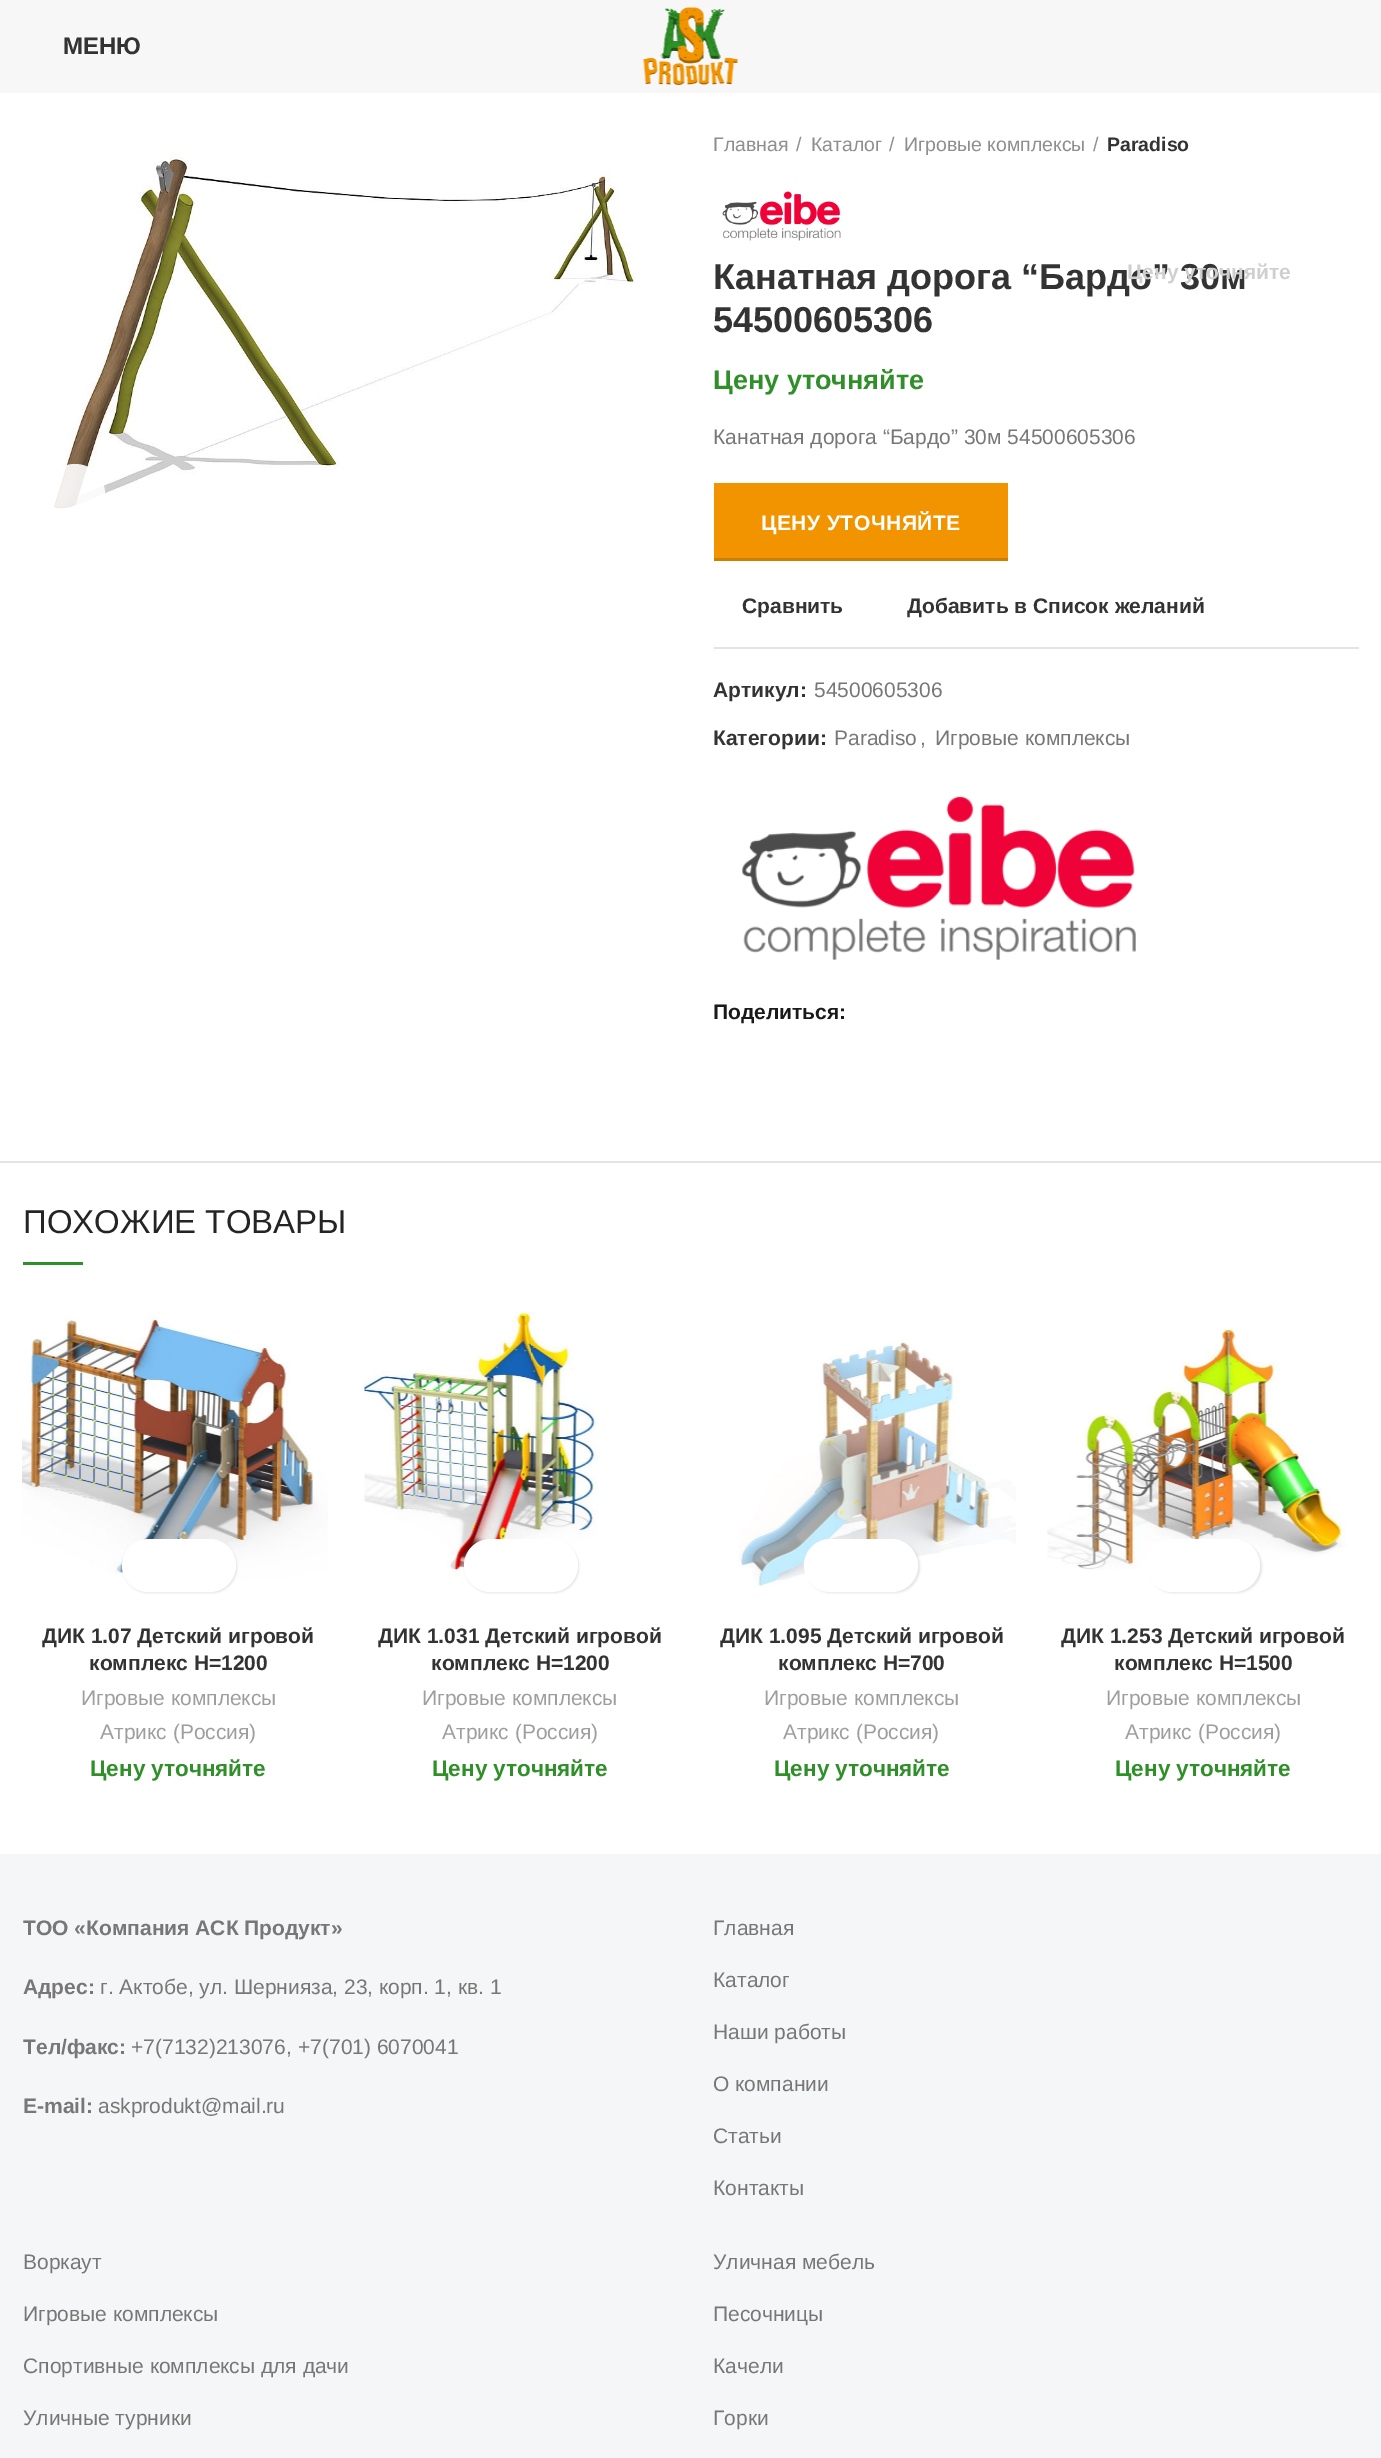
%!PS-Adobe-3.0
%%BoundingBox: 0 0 1381 2458
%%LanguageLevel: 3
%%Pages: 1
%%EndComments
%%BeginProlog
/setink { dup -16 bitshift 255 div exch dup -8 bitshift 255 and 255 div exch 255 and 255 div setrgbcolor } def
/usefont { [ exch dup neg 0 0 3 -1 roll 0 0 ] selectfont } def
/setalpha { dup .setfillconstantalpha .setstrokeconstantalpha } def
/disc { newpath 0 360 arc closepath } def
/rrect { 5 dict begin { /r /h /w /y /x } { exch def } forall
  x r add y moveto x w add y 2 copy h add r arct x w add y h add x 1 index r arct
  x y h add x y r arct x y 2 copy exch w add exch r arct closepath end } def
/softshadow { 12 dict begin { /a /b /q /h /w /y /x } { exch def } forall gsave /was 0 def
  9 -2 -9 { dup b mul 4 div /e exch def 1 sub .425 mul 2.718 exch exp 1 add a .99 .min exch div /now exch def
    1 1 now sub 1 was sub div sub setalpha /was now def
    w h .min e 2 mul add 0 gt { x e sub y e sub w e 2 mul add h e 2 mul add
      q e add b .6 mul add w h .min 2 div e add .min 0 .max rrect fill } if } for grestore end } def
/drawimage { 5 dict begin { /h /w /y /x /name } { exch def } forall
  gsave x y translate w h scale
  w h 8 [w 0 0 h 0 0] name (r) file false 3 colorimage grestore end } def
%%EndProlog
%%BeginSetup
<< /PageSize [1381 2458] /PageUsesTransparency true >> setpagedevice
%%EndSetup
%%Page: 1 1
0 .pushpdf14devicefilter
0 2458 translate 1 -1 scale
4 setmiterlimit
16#FFFFFF setink
0 0 1381 2458 rectfill
16#F7F7F7 setink
0 0 1381 93 rectfill
/LiberationSans-Bold 24 usefont
16#333333 setink
63 54 moveto (МЕНЮ) show
(img1.raw) 643 7 96 78 drawimage
(img2.raw) 48 151 587 359 drawimage
0.9 setalpha
16#FFFFFF setink
75 494 30 disc fill
/LiberationSans-Regular 19.5 usefont
1 setalpha
16#8E8E8E setink
[
    [(Главная) 713 151]
    [(/) 796 151]
    [(Каталог) 811 151]
    [(/) 889 151]
    [(Игровые комплексы) 904 151]
    [(/) 1093 151]
] { aload pop moveto show } forall
/LiberationSans-Bold 19.5 usefont
16#333333 setink
1107 151 moveto (Paradiso) show
/LiberationSans-Bold 36 usefont
713 289 moveto (Канатная дорога “Бардо” 30м) show
/LiberationSans-Bold 21 usefont
16#CFCFCF setink
1127 279 moveto (Цену уточняйте) show
(img3.raw) 722 191 119 50 drawimage
/LiberationSans-Bold 36 usefont
16#333333 setink
713 332 moveto (54500605306) show
/LiberationSans-Bold 27 usefont
16#2F8F28 setink
713 389 moveto (Цену уточняйте) show
/LiberationSans-Regular 21 usefont
16#777777 setink
713 444 moveto (Канатная дорога “Бардо” 30м 54500605306) show
16#F29400 setink
714 483 294 75 rectfill
16#CE7E00 setink
714 558 294 3 rectfill
/LiberationSans-Bold 21 usefont
16#FFFFFF setink
761 530 moveto 0.5 0 (ЦЕНУ УТОЧНЯЙТЕ) ashow
16#333333 setink
742 613 moveto (Сравнить) show
907 613 moveto (Добавить в Список желаний) show
16#E4E4E4 setink
714 647 645 2 rectfill
16#333333 setink
713 697 moveto (Артикул:) show
/LiberationSans-Regular 21 usefont
16#777777 setink
814 697 moveto (54500605306) show
/LiberationSans-Bold 21 usefont
16#333333 setink
713 745 moveto (Категории:) show
/LiberationSans-Regular 21 usefont
16#777777 setink
[
    [(Paradiso) 834 745]
    [(,) 920 745]
    [(Игровые комплексы) 935 745]
] { aload pop moveto show } forall
(img4.raw) 742 796 394 164 drawimage
/LiberationSans-Bold 21 usefont
16#1B1919 setink
713 1019 moveto (Поделиться:) show
16#E4E4E4 setink
0 1161 1381 2 rectfill
/LiberationSans-Regular 33 usefont
16#242424 setink
23 1233 moveto (ПОХОЖИЕ ТОВАРЫ) show
16#2F8F28 setink
23 1262 60 3 rectfill
(img5.raw) 22 1315 306 271 drawimage
16#000000 setink
123 1541 114 52 26 1 0.1 softshadow
16#FFFFFF setink
122 1539 114 53 26.5 rrect fill
/LiberationSans-Bold 21 usefont
16#333333 setink
42 1643 moveto (ДИК 1.07 Детский игровой) show
89 1670 moveto (комплекс Н=1200) show
/LiberationSans-Regular 21 usefont
16#9E9E9E setink
81 1705 moveto (Игровые комплексы) show
100 1739 moveto (Атрикс \(Россия\)) show
/LiberationSans-Bold 22.5 usefont
16#2F8F28 setink
90 1776 moveto (Цену уточняйте) show
(img6.raw) 364 1312 234 265 drawimage
16#000000 setink
465 1541 114 52 26 1 0.1 softshadow
16#FFFFFF setink
464 1539 114 53 26.5 rrect fill
/LiberationSans-Bold 21 usefont
16#333333 setink
378 1643 moveto (ДИК 1.031 Детский игровой) show
431 1670 moveto (комплекс Н=1200) show
/LiberationSans-Regular 21 usefont
16#9E9E9E setink
422 1705 moveto (Игровые комплексы) show
442 1739 moveto (Атрикс \(Россия\)) show
/LiberationSans-Bold 22.5 usefont
16#2F8F28 setink
432 1776 moveto (Цену уточняйте) show
(img7.raw) 739 1338 277 248 drawimage
16#000000 setink
806 1541 114 52 26 1 0.1 softshadow
16#FFFFFF setink
804 1539 114 53 26.5 rrect fill
/LiberationSans-Bold 21 usefont
16#333333 setink
720 1643 moveto (ДИК 1.095 Детский игровой) show
778 1670 moveto (комплекс Н=700) show
/LiberationSans-Regular 21 usefont
16#9E9E9E setink
764 1705 moveto (Игровые комплексы) show
783 1739 moveto (Атрикс \(Россия\)) show
/LiberationSans-Bold 22.5 usefont
16#2F8F28 setink
774 1776 moveto (Цену уточняйте) show
(img8.raw) 1047 1329 299 241 drawimage
16#000000 setink
1148 1541 114 52 26 1 0.1 softshadow
16#FFFFFF setink
1146 1539 114 53 26.5 rrect fill
/LiberationSans-Bold 21 usefont
16#333333 setink
1061 1643 moveto (ДИК 1.253 Детский игровой) show
1114 1670 moveto (комплекс Н=1500) show
/LiberationSans-Regular 21 usefont
16#9E9E9E setink
1106 1705 moveto (Игровые комплексы) show
1125 1739 moveto (Атрикс \(Россия\)) show
/LiberationSans-Bold 22.5 usefont
16#2F8F28 setink
1115 1776 moveto (Цену уточняйте) show
16#F5F6F7 setink
0 1854 1381 604 rectfill
/LiberationSans-Bold 21 usefont
16#777777 setink
23 1935 moveto (ТОО «Компания АСК Продукт») show
23 1994 moveto (Адрес:) show
/LiberationSans-Regular 21 usefont
100 1994 moveto (г. Актобе, ул. Шернияза, 23, корп. 1, кв. 1) show
/LiberationSans-Bold 21 usefont
23 2054 moveto (Тел/факс:) show
/LiberationSans-Regular 21 usefont
[
    [(+7\(7132\)213076) 131 2054]
    [(,) 286 2054]
    [(+7\(701\) 6070041) 298 2054]
] { aload pop moveto show } forall
/LiberationSans-Bold 21 usefont
23 2113 moveto (E-mail:) show
/LiberationSans-Regular 21 usefont
[
    [(askprodukt@mail.ru) 98 2113]
    [(Главная) 713 1935]
    [(Каталог) 713 1987]
    [(Наши работы) 713 2039]
    [(О компании) 713 2091]
    [(Статьи) 713 2143]
    [(Контакты) 713 2195]
    [(Воркаут) 23 2269]
    [(Игровые комплексы) 23 2321]
    [(Спортивные комплексы для дачи) 23 2373]
    [(Уличные турники) 23 2425]
    [(Уличная мебель) 713 2269]
    [(Песочницы) 713 2321]
    [(Качели) 713 2373]
    [(Горки) 713 2425]
] { aload pop moveto show } forall
.poppdf14devicefilter showpage
%%EOF
